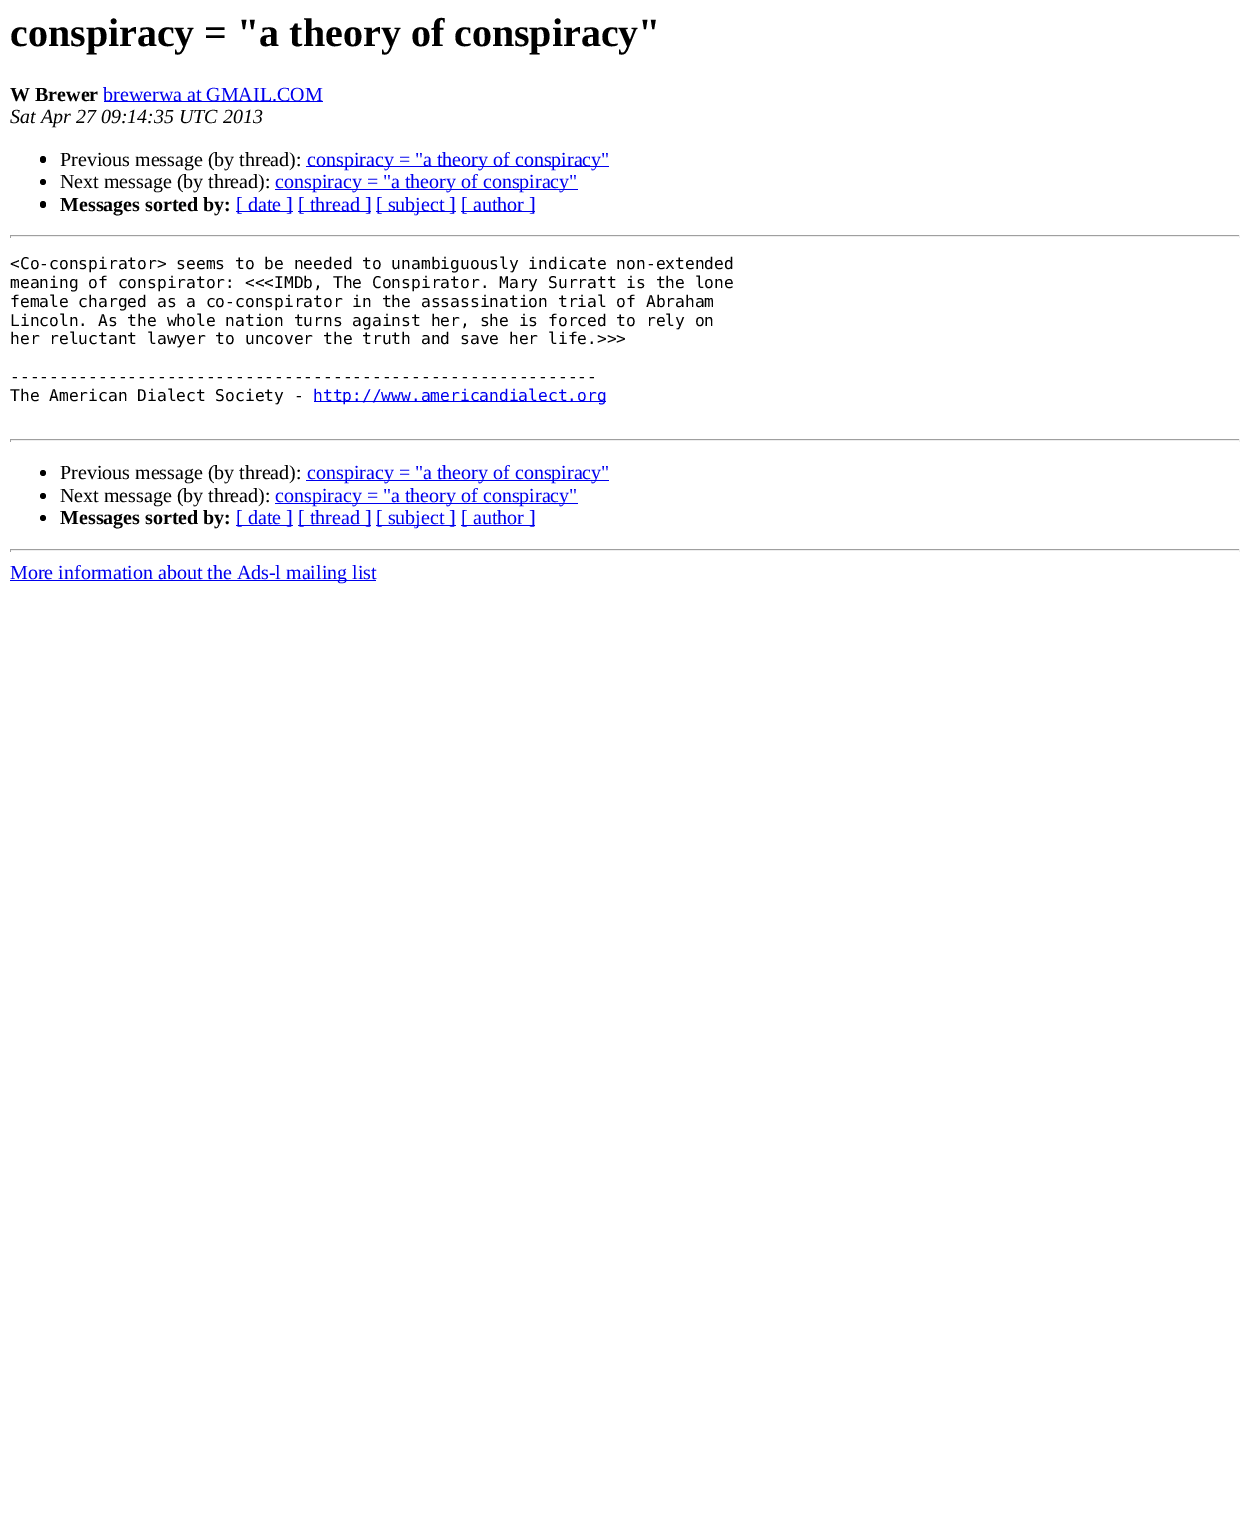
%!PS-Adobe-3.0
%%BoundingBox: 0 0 1249 1518
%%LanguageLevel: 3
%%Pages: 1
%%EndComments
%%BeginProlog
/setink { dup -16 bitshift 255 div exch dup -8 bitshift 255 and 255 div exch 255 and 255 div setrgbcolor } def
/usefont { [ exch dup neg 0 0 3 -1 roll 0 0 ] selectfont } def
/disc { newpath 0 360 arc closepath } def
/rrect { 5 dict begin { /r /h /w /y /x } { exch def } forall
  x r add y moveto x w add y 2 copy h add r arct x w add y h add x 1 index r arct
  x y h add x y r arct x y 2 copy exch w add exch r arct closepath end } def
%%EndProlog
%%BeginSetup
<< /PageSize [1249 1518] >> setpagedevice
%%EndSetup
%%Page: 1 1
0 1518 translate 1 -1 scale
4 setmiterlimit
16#FFFFFF setink
0 0 1249 1518 rectfill
/LiberationSerif-Bold 40 usefont
16#000000 setink
10 46 moveto (conspiracy = "a theory of conspiracy") show
/LiberationSerif-Bold 20 usefont
10 101 moveto (W Brewer) show
16#0000EE setink
104 101 219 1 rectfill
/LiberationSerif-Regular 20 usefont
103 101 moveto (brewerwa at GMAIL.COM) show
/LiberationSerif-Italic 20 usefont
16#000000 setink
10 123 moveto (Sat Apr 27 09:14:35 UTC 2013) show
40 156 6 7 3 rrect fill
/LiberationSerif-Regular 20 usefont
60 166 moveto (Previous message \(by thread\):) show
16#0000EE setink
306 166 303 1 rectfill
307 166 moveto (conspiracy = "a theory of conspiracy") show
16#000000 setink
43 182 3 disc fill
60 188 moveto (Next message \(by thread\):) show
16#0000EE setink
275 189 303 1 rectfill
275 188 moveto (conspiracy = "a theory of conspiracy") show
16#000000 setink
40 201 6 7 3 rrect fill
/LiberationSerif-Bold 20 usefont
60 211 moveto (Messages sorted by:) show
16#0000EE setink
236 211 57 1 rectfill
/LiberationSerif-Regular 20 usefont
236 211 moveto ([ date ]) show
298 211 73 1 rectfill
298 211 moveto ([ thread ]) show
376 211 80 1 rectfill
376 211 moveto ([ subject ]) show
461 211 74 1 rectfill
461 211 moveto ([ author ]) show
[
    [10 235 1230 1 16#9F9F9F]
    [1239 235 1 3 16#EEEEEE]
    [10 236 1230 1 16#EEEEEE]
    [10 235 1 3 16#9F9F9F]
] { aload pop setink rectfill } forall
/DejaVuSansMono-Regular 16.25 usefont
16#000000 setink
[
    [(<Co-conspirator> seems to be needed to unambiguously indicate non-extended) 10 269]
    [(meaning of conspirator: <<<IMDb, The Conspirator. Mary Surratt is the lone) 10 288]
    [(female charged as a co-conspirator in the assassination trial of Abraham) 10 307]
    [(Lincoln. As the whole nation turns against her, she is forced to rely on) 10 326]
    [(her reluctant lawyer to uncover the truth and save her life.>>>) 10 344]
    [(------------------------------------------------------------) 10 382]
    [(The American Dialect Society -) 10 401]
] { aload pop moveto show } forall
16#0000EE setink
314 401 292 1 rectfill
313 401 moveto (http://www.americandialect.org) show
[
    [10 439 1230 1 16#9F9F9F]
    [1239 439 1 3 16#EEEEEE]
    [10 440 1230 1 16#EEEEEE]
    [10 439 1 3 16#9F9F9F]
] { aload pop setink rectfill } forall
16#000000 setink
43 473 3 disc fill
/LiberationSerif-Regular 20 usefont
60 479 moveto (Previous message \(by thread\):) show
16#0000EE setink
306 480 303 1 rectfill
307 479 moveto (conspiracy = "a theory of conspiracy") show
16#000000 setink
43 496 3 disc fill
60 502 moveto (Next message \(by thread\):) show
16#0000EE setink
275 503 303 1 rectfill
275 502 moveto (conspiracy = "a theory of conspiracy") show
16#000000 setink
43 518 3 disc fill
/LiberationSerif-Bold 20 usefont
60 524 moveto (Messages sorted by:) show
16#0000EE setink
236 525 57 1 rectfill
/LiberationSerif-Regular 20 usefont
236 524 moveto ([ date ]) show
298 525 73 1 rectfill
298 524 moveto ([ thread ]) show
376 525 80 1 rectfill
376 524 moveto ([ subject ]) show
461 525 74 1 rectfill
461 524 moveto ([ author ]) show
[
    [10 549 1230 1 16#9F9F9F]
    [1239 549 1 3 16#EEEEEE]
    [10 550 1230 1 16#EEEEEE]
    [10 549 1 3 16#9F9F9F]
    [10 580 366 1 16#0000EE]
] { aload pop setink rectfill } forall
10 579 moveto (More information about the Ads-l mailing list) show
showpage
%%EOF
